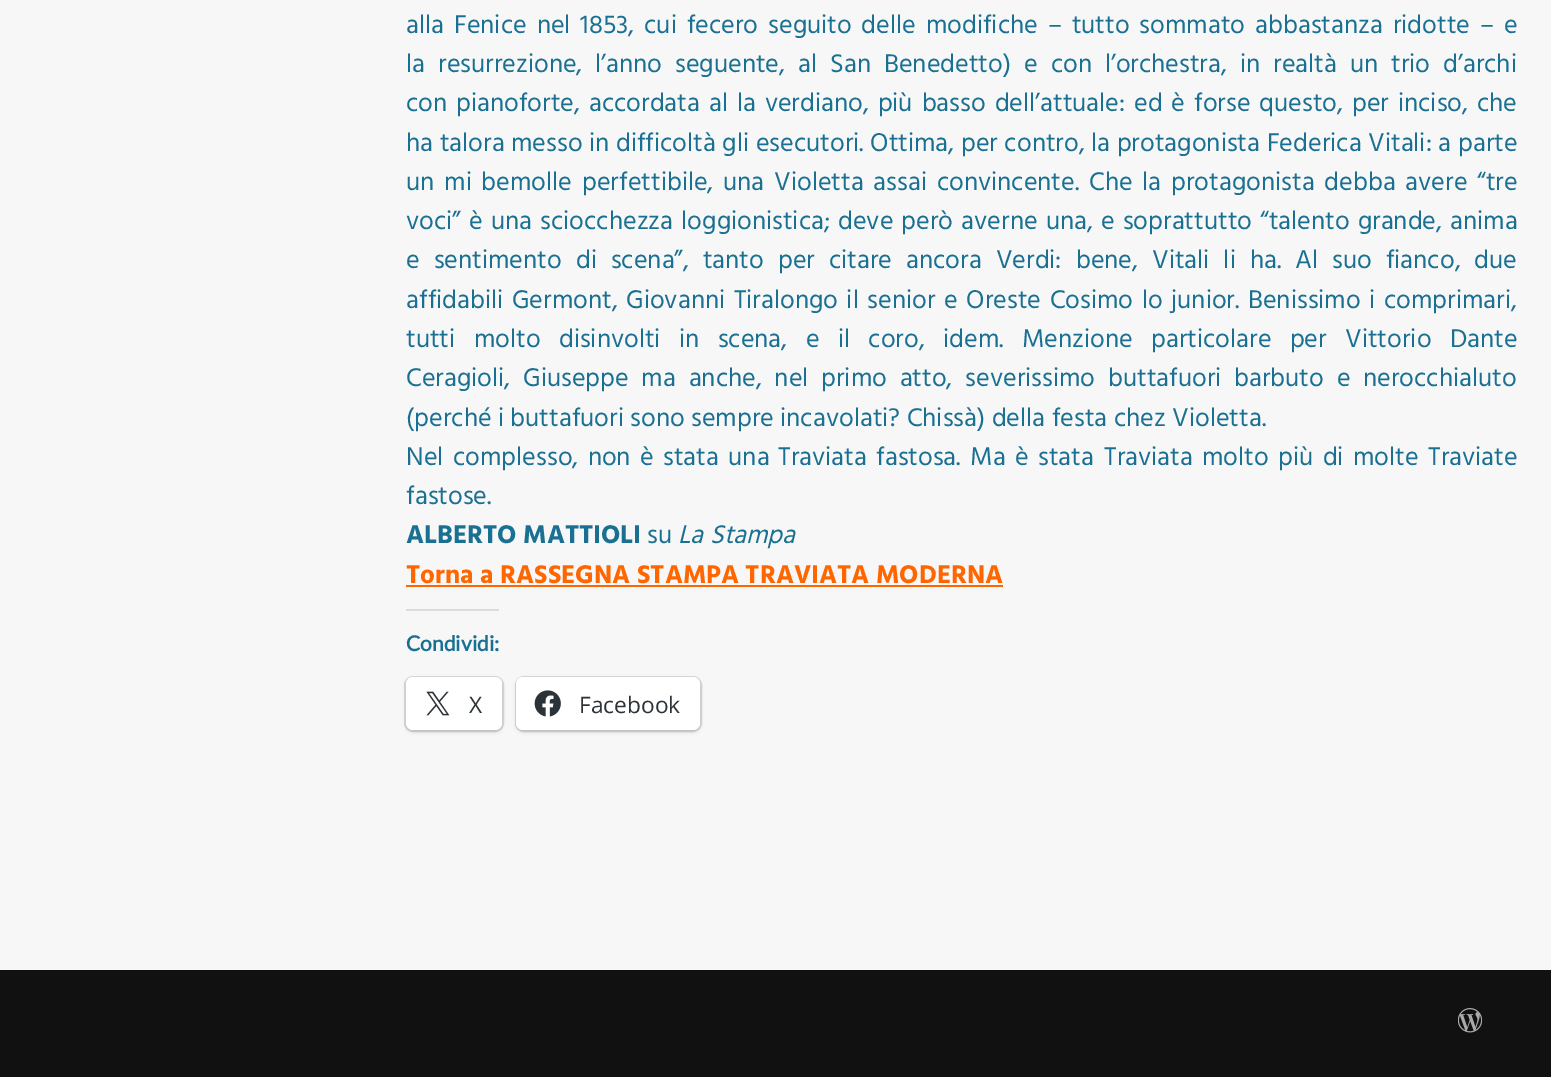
%!PS-Adobe-3.0
%%BoundingBox: 0 0 1551 1077
%%LanguageLevel: 3
%%Pages: 1
%%EndComments
%%BeginProlog
/setink { dup -16 bitshift 255 div exch dup -8 bitshift 255 and 255 div exch 255 and 255 div setrgbcolor } def
/usefont { [ exch dup neg 0 0 3 -1 roll 0 0 ] selectfont } def
/setalpha { dup .setfillconstantalpha .setstrokeconstantalpha } def
/rrect { 5 dict begin { /r /h /w /y /x } { exch def } forall
  x r add y moveto x w add y 2 copy h add r arct x w add y h add x 1 index r arct
  x y h add x y r arct x y 2 copy exch w add exch r arct closepath end } def
/softshadow { 12 dict begin { /a /b /q /h /w /y /x } { exch def } forall gsave /was 0 def
  9 -2 -9 { dup b mul 4 div /e exch def 1 sub .425 mul 2.718 exch exp 1 add a .99 .min exch div /now exch def
    1 1 now sub 1 was sub div sub setalpha /was now def
    w h .min e 2 mul add 0 gt { x e sub y e sub w e 2 mul add h e 2 mul add
      q e add b .6 mul add w h .min 2 div e add .min 0 .max rrect fill } if } for grestore end } def
/drawimage { 5 dict begin { /h /w /y /x /name } { exch def } forall
  gsave x y translate w h scale
  w h 8 [w 0 0 h 0 0] name (r) file false 3 colorimage grestore end } def
%%EndProlog
%%BeginSetup
<< /PageSize [1551 1077] /PageUsesTransparency true >> setpagedevice
%%EndSetup
%%Page: 1 1
0 .pushpdf14devicefilter
0 1077 translate 1 -1 scale
4 setmiterlimit
16#F7F7F7 setink
0 0 1551 1077 rectfill
/Hind-Regular 26.2 usefont
16#1A7092 setink
406 33 moveto 3.5 0 32 (alla Fenice nel 1853, cui fecero seguito delle modifiche – tutto sommato abbastanza ridotte – e) widthshow
406 72 moveto 6.6 0 32 (la resurrezione, l’anno seguente, al San Benedetto\) e con l’orchestra, in realtà un trio d’archi) widthshow
406 111 moveto 2.5 0 32 (con pianoforte, accordata al la verdiano, più basso dell’attuale: ed è forse questo, per inciso, che) widthshow
406 151 moveto 0.2 0 32 (ha talora messo in difficoltà gli esecutori. Ottima, per contro, la protagonista Federica Vitali: a parte) widthshow
406 190 moveto 3.4 0 32 (un mi bemolle perfettibile, una Violetta assai convincente. Che la protagonista debba avere “tre) widthshow
406 229 moveto 1.75 0 32 (voci” è una sciocchezza loggionistica; deve però averne una, e soprattutto “talento grande, anima) widthshow
406 268 moveto 7.6 0 32 (e sentimento di scena”, tanto per citare ancora Verdi: bene, Vitali li ha. Al suo fianco, due) widthshow
406 308 moveto 2.25 0 32 (affidabili Germont, Giovanni Tiralongo il senior e Oreste Cosimo lo junior. Benissimo i comprimari,) widthshow
406 347 moveto 12 0 32 (tutti molto disinvolti in scena, e il coro, idem. Menzione particolare per Vittorio Dante) widthshow
406 386 moveto 6.4 0 32 (Ceragioli, Giuseppe ma anche, nel primo atto, severissimo buttafuori barbuto e nerocchialuto) widthshow
406 426 moveto (\(perché i buttafuori sono sempre incavolati? Chissà\) della festa chez Violetta.) show
406 465 moveto 3 0 32 (Nel complesso, non è stata una) widthshow
778 465 moveto (Traviata) show
876 465 moveto 3 0 32 (fastosa. Ma è stata) widthshow
1104 465 moveto (Traviata) show
1202 465 moveto 3 0 32 (molto più di molte) widthshow
1428 465 moveto (Traviate) show
406 504 moveto (fastose.) show
/Hind-Bold 26.2 usefont
406 543 moveto (ALBERTO MATTIOLI) show
/Hind-Regular 26.2 usefont
647 543 moveto (su) show
/Hind-Italic 26.2 usefont
678 543 moveto (La Stampa) show
/Hind-Bold 26.2 usefont
16#FF6600 setink
406 583 moveto (Torna a RASSEGNA STAMPA TRAVIATA MODERNA) show
406 585 597 2 rectfill
16#DCDCDE setink
406 609 93 2 rectfill
/Lato-Bold 21 usefont
16#1A7092 setink
406 651 moveto (Condividi:) show
16#D9D9D9 setink
2 setlinewidth
405 677 98 54 8 rrect stroke
16#000000 setink
406 679 96 53 7 2 0.12 softshadow
16#FFFFFF setink
406 677 96 53 7 rrect fill
(img1.raw) 426 691 24 25 drawimage
/OpenSans-Regular 22.75 usefont
16#2C3338 setink
469 713 moveto (X) show
16#D9D9D9 setink
516 677 185 54 8 rrect stroke
16#000000 setink
516 679 184 53 7 2 0.12 softshadow
16#FFFFFF setink
516 677 184 53 7 rrect fill
(img2.raw) 534 690 27 27 drawimage
16#2C3338 setink
579 713 moveto (Facebook) show
16#111111 setink
0 970 1551 107 rectfill
(img3.raw) 1458 1008 24 25 drawimage
.poppdf14devicefilter showpage
%%EOF
